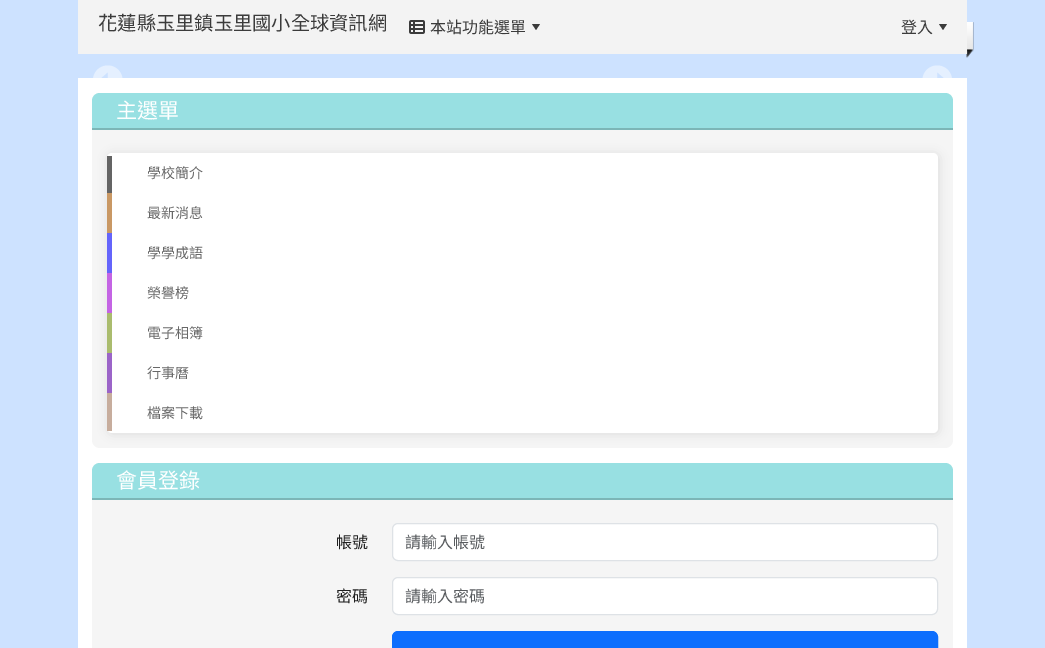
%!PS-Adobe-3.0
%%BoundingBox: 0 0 1045 648
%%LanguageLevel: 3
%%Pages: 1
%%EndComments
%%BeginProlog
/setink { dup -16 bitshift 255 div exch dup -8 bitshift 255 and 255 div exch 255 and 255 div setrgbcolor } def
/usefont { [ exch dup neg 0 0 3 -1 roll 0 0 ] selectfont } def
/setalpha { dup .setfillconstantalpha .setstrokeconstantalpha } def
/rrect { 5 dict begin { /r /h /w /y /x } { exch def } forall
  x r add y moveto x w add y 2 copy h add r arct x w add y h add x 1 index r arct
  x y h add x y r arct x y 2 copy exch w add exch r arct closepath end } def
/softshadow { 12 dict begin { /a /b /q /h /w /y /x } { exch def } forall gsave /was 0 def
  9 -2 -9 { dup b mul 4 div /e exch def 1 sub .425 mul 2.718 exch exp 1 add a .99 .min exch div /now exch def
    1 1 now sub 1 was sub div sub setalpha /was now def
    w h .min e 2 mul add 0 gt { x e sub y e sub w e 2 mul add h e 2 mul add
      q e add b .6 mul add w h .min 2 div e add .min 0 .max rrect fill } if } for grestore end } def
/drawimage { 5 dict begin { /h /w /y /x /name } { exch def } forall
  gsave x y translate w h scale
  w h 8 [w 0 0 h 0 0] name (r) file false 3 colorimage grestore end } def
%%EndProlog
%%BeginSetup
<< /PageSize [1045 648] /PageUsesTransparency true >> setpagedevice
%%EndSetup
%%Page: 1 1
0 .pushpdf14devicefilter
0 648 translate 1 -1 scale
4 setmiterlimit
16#CDE2FF setink
0 0 1045 648 rectfill
(img2.raw) 966 22 8 36 drawimage
16#F3F3F3 setink
78 0 889 54 rectfill
/NotoSansCJKTC-Regular 19.25 usefont
16#3B3B3B setink
98 30 moveto (花蓮縣玉里鎮玉里國小全球資訊網) show
(img1.raw) 409 20 16 14 drawimage
/NotoSansCJKTC-Regular 16 usefont
430 33 moveto (本站功能選單) show
532 24 moveto 540 24 lineto 536 30 lineto closepath fill
901 33 moveto (登入) show
939 24 moveto 947 24 lineto 943 30 lineto closepath fill
(img3.raw) 93 65 30 13 drawimage
(img4.raw) 922 65 30 13 drawimage
16#FFFFFF setink
78 78 889 570 rectfill
16#F5F5F5 setink
92 93 861 355 8 rrect fill
16#98E0E2 setink
100 93 moveto 945 93 lineto 949.5 93 953 96.5 953 101 curveto 953 130 lineto 92 130 lineto 92 101 lineto 92 96.5 95.5 93 100 93 curveto closepath fill
16#7CB6B7 setink
92 128 861 2 rectfill
/NotoSansCJKTC-Regular 21 usefont
16#FFFFFF setink
116 118 moveto (主選單) show
16#000000 setink
108 154 831 280 5 5 0.1 softshadow
16#FFFFFF setink
107 153 831 280 5 rrect fill
16#646464 setink
107 156 5 37 rectfill
/NotoSansCJKTC-Regular 14 usefont
16#686868 setink
147 178 moveto (學校簡介) show
16#C99864 setink
107 193 5 40 rectfill
16#686868 setink
147 218 moveto (最新消息) show
16#6464FB setink
107 233 5 40 rectfill
16#686868 setink
147 258 moveto (學學成語) show
16#C464E4 setink
107 273 5 40 rectfill
16#686868 setink
147 298 moveto (榮譽榜) show
16#AABC6E setink
107 313 5 40 rectfill
16#686868 setink
147 338 moveto (電子相簿) show
16#9B64C8 setink
107 353 5 40 rectfill
16#686868 setink
147 378 moveto (行事曆) show
16#C7AD9D setink
107 393 5 38 rectfill
16#686868 setink
147 418 moveto (檔案下載) show
16#F5F5F5 setink
92 463 861 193 8 rrect fill
16#98E0E2 setink
100 463 moveto 945 463 lineto 949.5 463 953 466.5 953 471 curveto 953 500 lineto 92 500 lineto 92 471 lineto 92 466.5 95.5 463 100 463 curveto closepath fill
16#7CB6B7 setink
92 498 861 2 rectfill
/NotoSansCJKTC-Regular 21 usefont
16#FFFFFF setink
116 488 moveto (會員登錄) show
/NotoSansCJKTC-Regular 16 usefont
16#202020 setink
336 548 moveto (帳號) show
16#FFFFFF setink
392.5 523.5 545 37 5.5 rrect gsave fill grestore
16#DEE2E6 setink
stroke
16#595C5F setink
405 548 moveto (請輸入帳號) show
16#202020 setink
336 602 moveto (密碼) show
16#FFFFFF setink
392.5 577.5 545 37 5.5 rrect gsave fill grestore
16#DEE2E6 setink
stroke
16#595C5F setink
405 602 moveto (請輸入密碼) show
16#0D6EFD setink
392.5 631.5 545 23 5.5 rrect gsave fill grestore
stroke
.poppdf14devicefilter showpage
%%EOF
